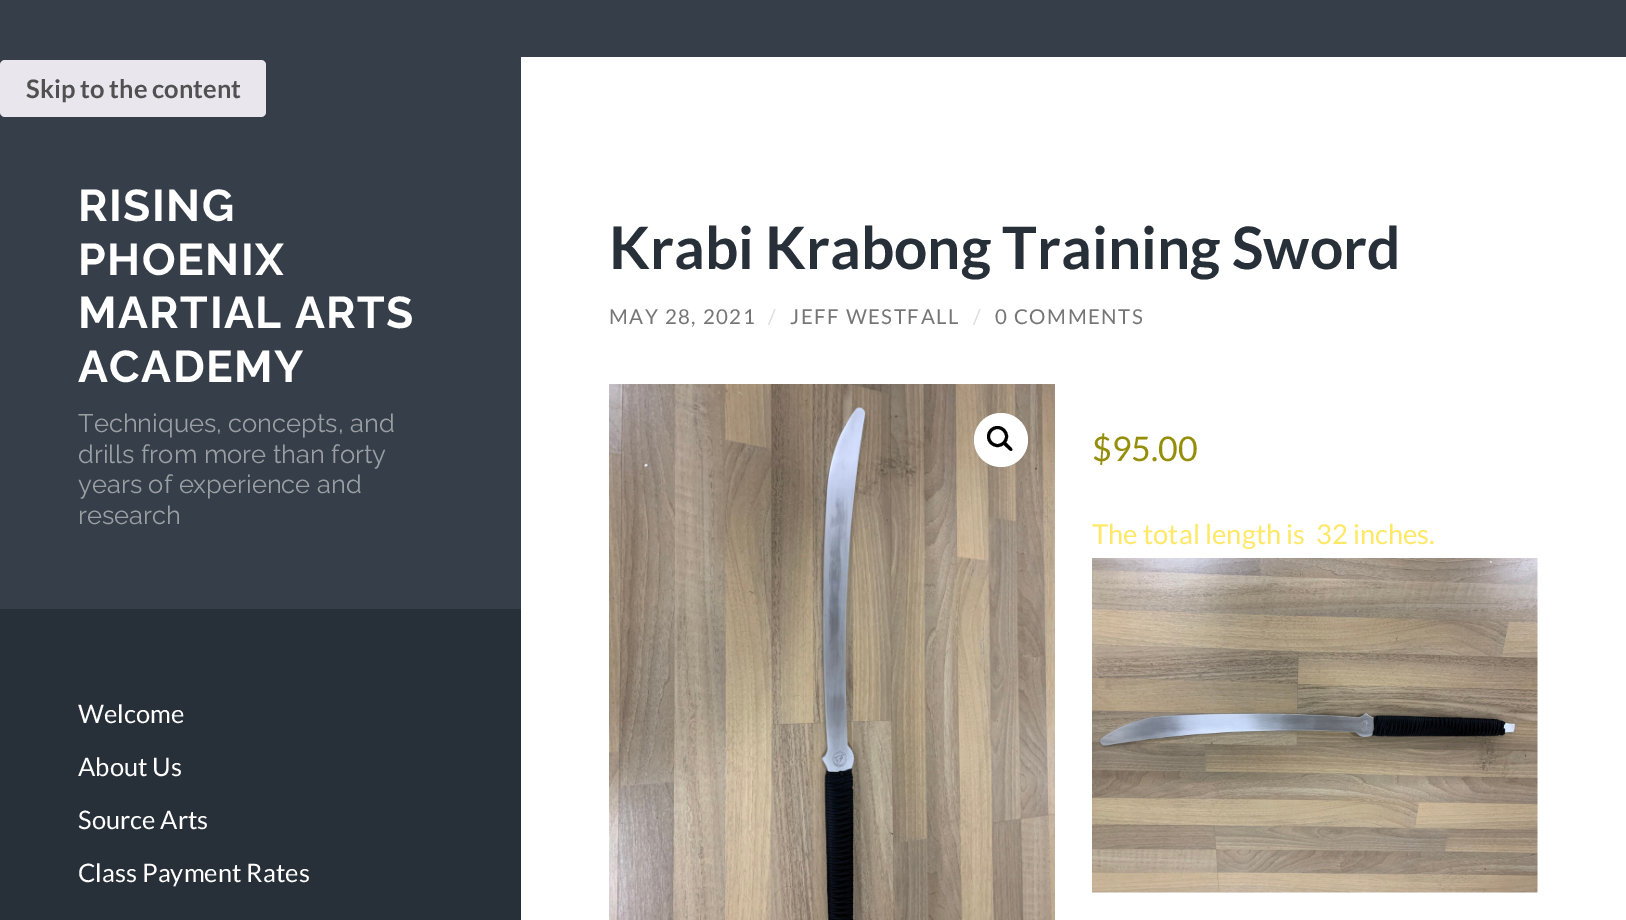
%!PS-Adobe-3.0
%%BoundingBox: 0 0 1626 920
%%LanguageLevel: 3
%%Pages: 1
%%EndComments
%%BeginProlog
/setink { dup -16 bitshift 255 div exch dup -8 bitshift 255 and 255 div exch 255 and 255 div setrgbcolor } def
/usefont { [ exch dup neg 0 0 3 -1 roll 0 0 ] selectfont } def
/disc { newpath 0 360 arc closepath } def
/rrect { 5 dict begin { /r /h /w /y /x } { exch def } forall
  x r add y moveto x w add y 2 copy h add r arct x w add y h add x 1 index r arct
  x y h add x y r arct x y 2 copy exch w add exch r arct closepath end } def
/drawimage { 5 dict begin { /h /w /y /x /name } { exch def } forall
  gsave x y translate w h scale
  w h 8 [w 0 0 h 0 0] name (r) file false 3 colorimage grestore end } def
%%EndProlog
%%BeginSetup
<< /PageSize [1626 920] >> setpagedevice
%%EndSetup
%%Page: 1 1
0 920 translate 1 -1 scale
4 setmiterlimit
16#353E49 setink
0 0 1626 920 rectfill
16#E9E6ED setink
0 60 266 57 5 rrect fill
/Lato-Bold 25.5 usefont
16#515151 setink
26 98 moveto (Skip to the content) show
/Raleway-Thin 44.5 usefont
16#FFFFFF setink
78 221 moveto 1.5 0 (RISING) ashow
78 275 moveto 1.5 0 (PHOENIX) ashow
78 328 moveto 1.5 0 (MARTIAL ARTS) ashow
78 382 moveto 1.5 0 (ACADEMY) ashow
/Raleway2-Thin 25.5 usefont
16#9A9FA4 setink
[
    [(Techniques, concepts, and) 78 432]
    [(drills from more than forty) 78 463]
    [(years of experience and) 78 493]
    [(research) 78 524]
] { aload pop moveto show } forall
16#272F38 setink
0 609 521 311 rectfill
/Lato-Regular 25.5 usefont
16#FFFFFF setink
[
    [(Welcome) 78 723]
    [(About Us) 78 776]
    [(Source Arts) 78 829]
    [(Class Payment Rates) 78 882]
] { aload pop moveto show } forall
521 57 1105 863 rectfill
/Lato-Bold 58.6 usefont
16#272F38 setink
609 269 moveto (Krabi Krabong Training Sword) show
/Lato-Regular 20.5 usefont
16#767676 setink
609 324 moveto 1.5 0 (MAY 28, 2021) ashow
16#DDDDDD setink
768 324 moveto 1.5 0 (/) ashow
16#767676 setink
790 324 moveto 1.5 0 (JEFF WESTFALL) ashow
16#DDDDDD setink
973 324 moveto 1.5 0 (/) ashow
16#767676 setink
995 324 moveto 1.5 0 (0 COMMENTS) ashow
(img1.raw) 609 384 446 536 drawimage
16#FFFFFF setink
1001 440 27 disc fill
16#000000 setink
3 setlinewidth
997.5 436.5 9 disc stroke
1003.5 442 moveto 1005 440.5 1008 444.5 1008.5 445 curveto 1009.5 446 1013.5 449 1012 450.5 curveto 1010 452 1007.5 448 1006.5 447.5 curveto 1005.5 446.5 1001.5 443.5 1003.5 442 curveto closepath fill
/Lato-Regular 34 usefont
16#958E09 setink
1092 461 moveto ($95.00) show
/Lato-Regular 27.4 usefont
16#FFE866 setink
1092 544 moveto (The total length is  32 inches.) show
(img2.raw) 1092 558 446 335 drawimage
showpage
%%EOF
